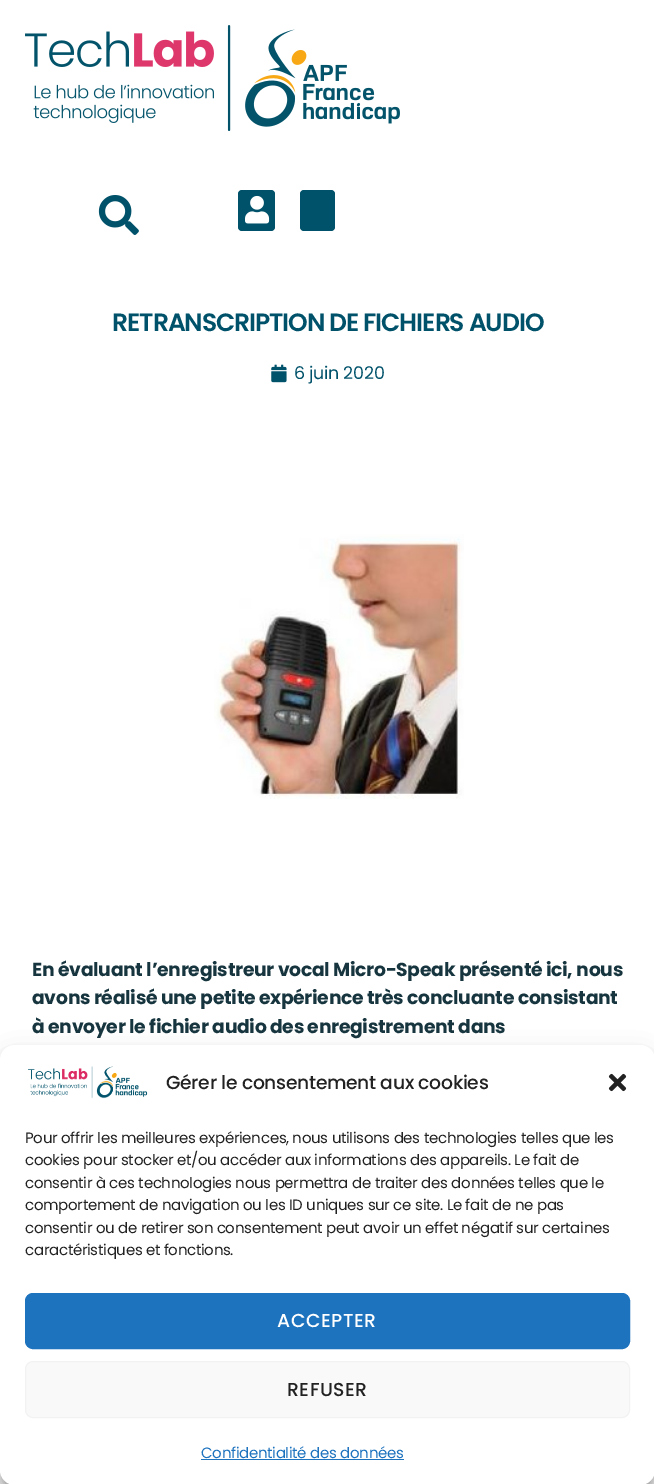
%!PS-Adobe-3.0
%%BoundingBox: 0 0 654 1484
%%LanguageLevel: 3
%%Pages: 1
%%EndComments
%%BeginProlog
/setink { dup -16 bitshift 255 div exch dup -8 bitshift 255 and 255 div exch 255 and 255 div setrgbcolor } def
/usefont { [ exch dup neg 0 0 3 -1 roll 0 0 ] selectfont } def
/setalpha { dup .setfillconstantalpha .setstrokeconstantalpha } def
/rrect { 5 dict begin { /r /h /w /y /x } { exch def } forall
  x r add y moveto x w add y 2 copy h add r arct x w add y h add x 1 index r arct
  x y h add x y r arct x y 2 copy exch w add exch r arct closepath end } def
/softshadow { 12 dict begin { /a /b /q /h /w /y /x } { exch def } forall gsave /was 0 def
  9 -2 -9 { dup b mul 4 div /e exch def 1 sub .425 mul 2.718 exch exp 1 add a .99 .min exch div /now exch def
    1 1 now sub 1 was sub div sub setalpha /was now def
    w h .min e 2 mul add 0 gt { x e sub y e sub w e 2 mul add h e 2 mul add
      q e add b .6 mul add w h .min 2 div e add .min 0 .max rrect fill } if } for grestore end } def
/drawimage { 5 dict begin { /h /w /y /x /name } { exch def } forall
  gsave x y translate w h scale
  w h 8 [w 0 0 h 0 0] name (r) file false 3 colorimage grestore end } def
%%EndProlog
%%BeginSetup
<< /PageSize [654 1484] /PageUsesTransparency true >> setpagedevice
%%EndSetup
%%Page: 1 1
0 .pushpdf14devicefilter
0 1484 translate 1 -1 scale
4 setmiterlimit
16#FFFFFF setink
0 0 654 1484 rectfill
(img1.raw) 25 25 375 106 drawimage
(img2.raw) 98 195 41 40 drawimage
16#00526A setink
238 190 37 41 4 rrect fill
(img3.raw) 245 195 25 29 drawimage
300 190 35 41 4 rrect fill
/Poppins-SemiBold 25 usefont
112 331 moveto -1.05 0 (RETRANSCRIPTION DE FICHIERS AUDIO) ashow
(img4.raw) 271 364 16 19 drawimage
/Poppins-Regular 17.5 usefont
294 379 moveto -0.3 0 (6 juin 2020) ashow
(img5.raw) 214 534 250 265 drawimage
/Poppins-Bold 18.75 usefont
16#16353E setink
32 976 moveto -0.3 0 (En évaluant l’enregistreur vocal Micro-Speak présenté ici, nous) ashow
32 1004 moveto -0.3 0 (avons réalisé une petite expérience très concluante consistant) ashow
32 1033 moveto -0.3 0 (à envoyer le fichier audio des enregistrement dans) ashow
16#000000 setink
0 1053 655 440 15 4 0.23 softshadow
0 1058 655 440 15 12.5 0.19 softshadow
16#FFFFFF setink
0 1045 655 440 15 rrect fill
(img6.raw) 28 1066 120 33 drawimage
/Poppins-Medium 18.75 usefont
16#222222 setink
166 1089 moveto -0.3 0 (Gérer le consentement aux cookies) ashow
(img7.raw) 608 1073 19 19 drawimage
/Poppins-Regular 15 usefont
25 1143 moveto -0.3 0 (Pour offrir les meilleures expériences, nous utilisons des technologies telles que les) ashow
25 1165 moveto -0.3 0 (cookies pour stocker et/ou accéder aux informations des appareils. Le fait de) ashow
25 1188 moveto -0.3 0 (consentir à ces technologies nous permettra de traiter des données telles que le) ashow
25 1210 moveto -0.3 0 (comportement de navigation ou les ID uniques sur ce site. Le fait de ne pas) ashow
25 1233 moveto -0.3 0 (consentir ou de retirer son consentement peut avoir un effet négatif sur certaines) ashow
25 1255 moveto -0.3 0 (caractéristiques et fonctions.) ashow
16#1E73BE setink
25.5 1293.5 604 55 7.5 rrect gsave fill grestore
stroke
/Poppins-Medium 18.75 usefont
16#FFFFFF setink
277 1327 moveto 0.5 0 (ACCEPTER) ashow
16#F9F9F9 setink
25.5 1361.5 604 56 7.5 rrect gsave fill grestore
16#F2F2F2 setink
stroke
16#222222 setink
287 1396 moveto 0.5 0 (REFUSER) ashow
/Poppins-Regular 15 usefont
16#1E73BE setink
201 1458 moveto -0.3 0 (Confidentialité des données) ashow
201 1459 203 1 rectfill
.poppdf14devicefilter showpage
%%EOF
